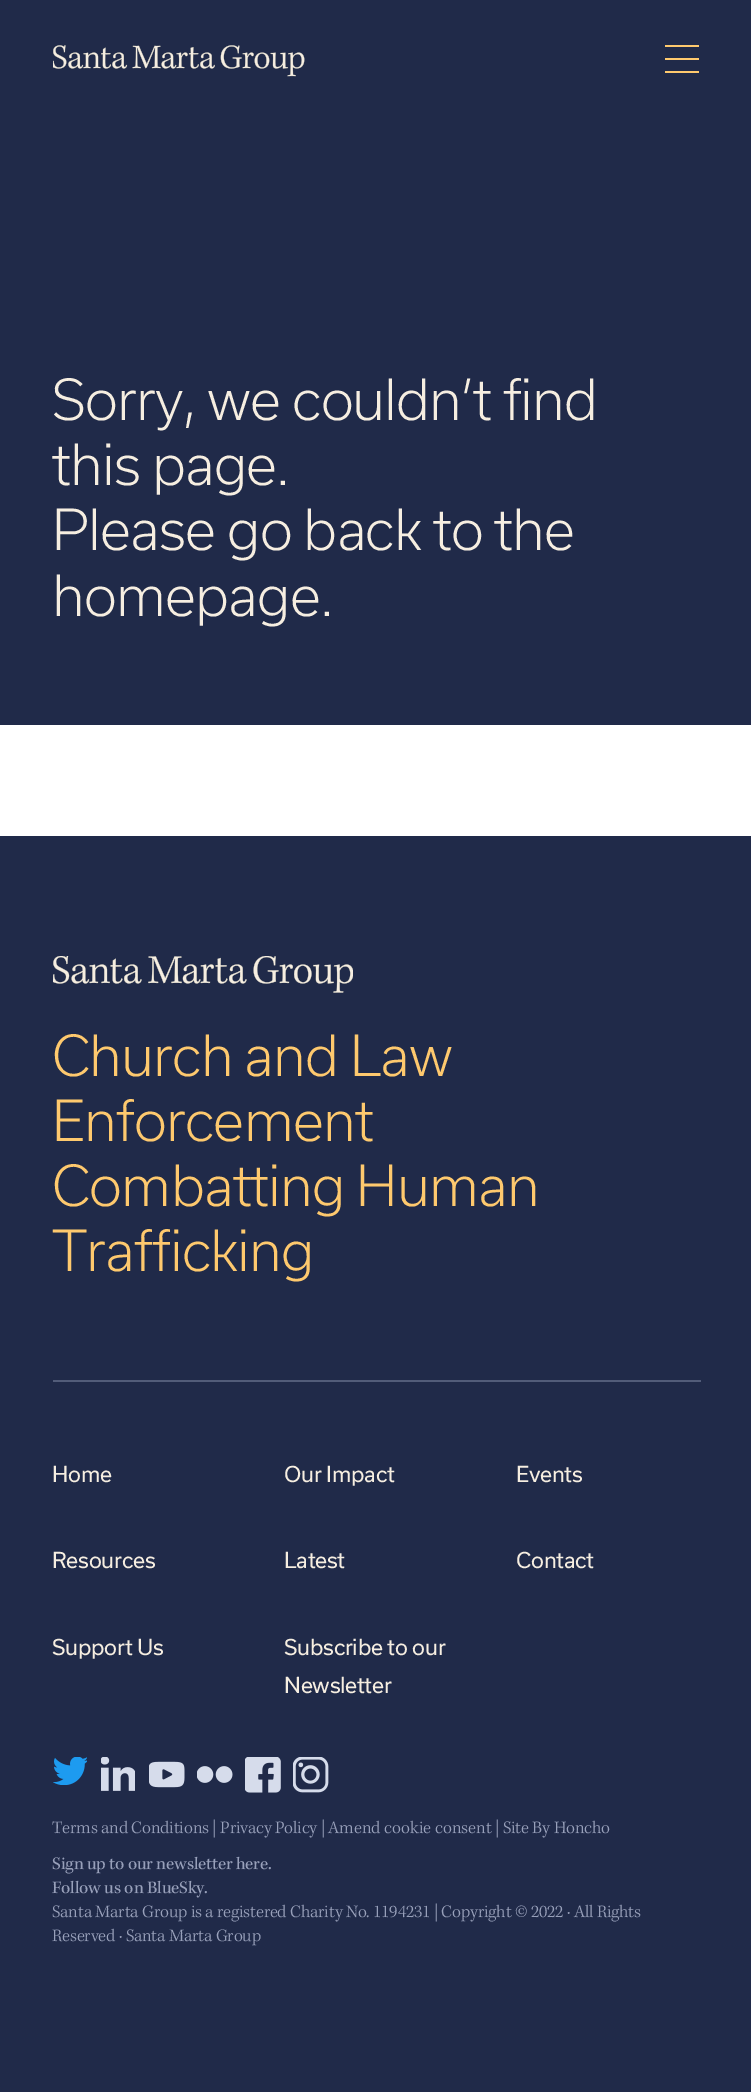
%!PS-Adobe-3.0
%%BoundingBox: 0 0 751 2092
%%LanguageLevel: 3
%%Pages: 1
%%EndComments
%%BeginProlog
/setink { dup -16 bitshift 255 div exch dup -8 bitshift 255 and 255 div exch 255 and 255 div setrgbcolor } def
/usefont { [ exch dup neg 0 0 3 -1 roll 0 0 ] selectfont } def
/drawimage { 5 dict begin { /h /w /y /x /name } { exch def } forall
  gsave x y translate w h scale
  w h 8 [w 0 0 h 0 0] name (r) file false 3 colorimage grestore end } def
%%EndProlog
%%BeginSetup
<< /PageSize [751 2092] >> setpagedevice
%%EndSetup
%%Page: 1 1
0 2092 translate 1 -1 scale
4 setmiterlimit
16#FFFFFF setink
0 0 751 2092 rectfill
16#202A49 setink
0 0 moveto 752 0 lineto 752 80 lineto 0 80 lineto closepath gsave fill grestore
6 setlinewidth
stroke
(img1.raw) 53 45 252 32 drawimage
[
    [665 58 34 2 16#FEC96E]
    [665 45 34 2 16#FEC96E]
    [665 71 34 2 16#FEC96E]
    [0 83 751 642 16#202A49]
] { aload pop setink rectfill } forall
/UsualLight-Light 54 usefont
16#F6EEE1 setink
52 420 moveto -0.8 0 (Sorry, we couldn’t find) ashow
52 485 moveto -0.8 0 (this page.) ashow
52 550 moveto -0.8 0 (Please go back to the) ashow
52 616 moveto -0.8 0 (homepage.) ashow
16#202A49 setink
0 836 751 1256 rectfill
(img2.raw) 53 956 300 37 drawimage
16#FEC96E setink
52 1076 moveto -0.8 0 (Church and Law) ashow
52 1141 moveto -0.8 0 (Enforcement) ashow
52 1206 moveto -0.8 0 (Combatting Human) ashow
52 1271 moveto -0.8 0 (Trafficking) ashow
16#525C79 setink
53 1380 648 2 rectfill
/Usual-Regular 21 usefont
16#F6EEE1 setink
52 1482 moveto -0.25 0 (Home) ashow
284 1482 moveto -0.25 0 (Our Impact) ashow
516 1482 moveto -0.25 0 (Events) ashow
52 1568 moveto -0.25 0 (Resources) ashow
284 1568 moveto -0.25 0 (Latest) ashow
516 1568 moveto -0.25 0 (Contact) ashow
52 1655 moveto -0.25 0 (Support Us) ashow
284 1655 moveto -0.25 0 (Subscribe to our) ashow
284 1693 moveto -0.25 0 (Newsletter) ashow
(img3.raw) 53 1757 34 28 drawimage
(img4.raw) 101 1757 34 34 drawimage
(img5.raw) 149 1761 36 27 drawimage
(img6.raw) 197 1766 36 17 drawimage
(img7.raw) 245 1757 36 36 drawimage
(img8.raw) 293 1757 36 36 drawimage
/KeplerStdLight-Light 18 usefont
16#98A0BA setink
52 1833 moveto -0.18 0 (Terms and Conditions | Privacy Policy |) ashow
328 1833 moveto (Amend cookie consent) show
495 1833 moveto -0.18 0 (| Site By Honcho) ashow
/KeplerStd-Regular 18 usefont
52 1869 moveto -0.18 0 (Sign up to our newsletter here.) ashow
52 1893 moveto -0.18 0 (Follow us on BlueSky.) ashow
/KeplerStdLight-Light 18 usefont
52 1917 moveto -0.18 0 (Santa Marta Group is a registered Charity No. 1194231 | Copyright © 2022 · All Rights) ashow
52 1941 moveto -0.18 0 (Reserved · Santa Marta Group) ashow
showpage
%%EOF
